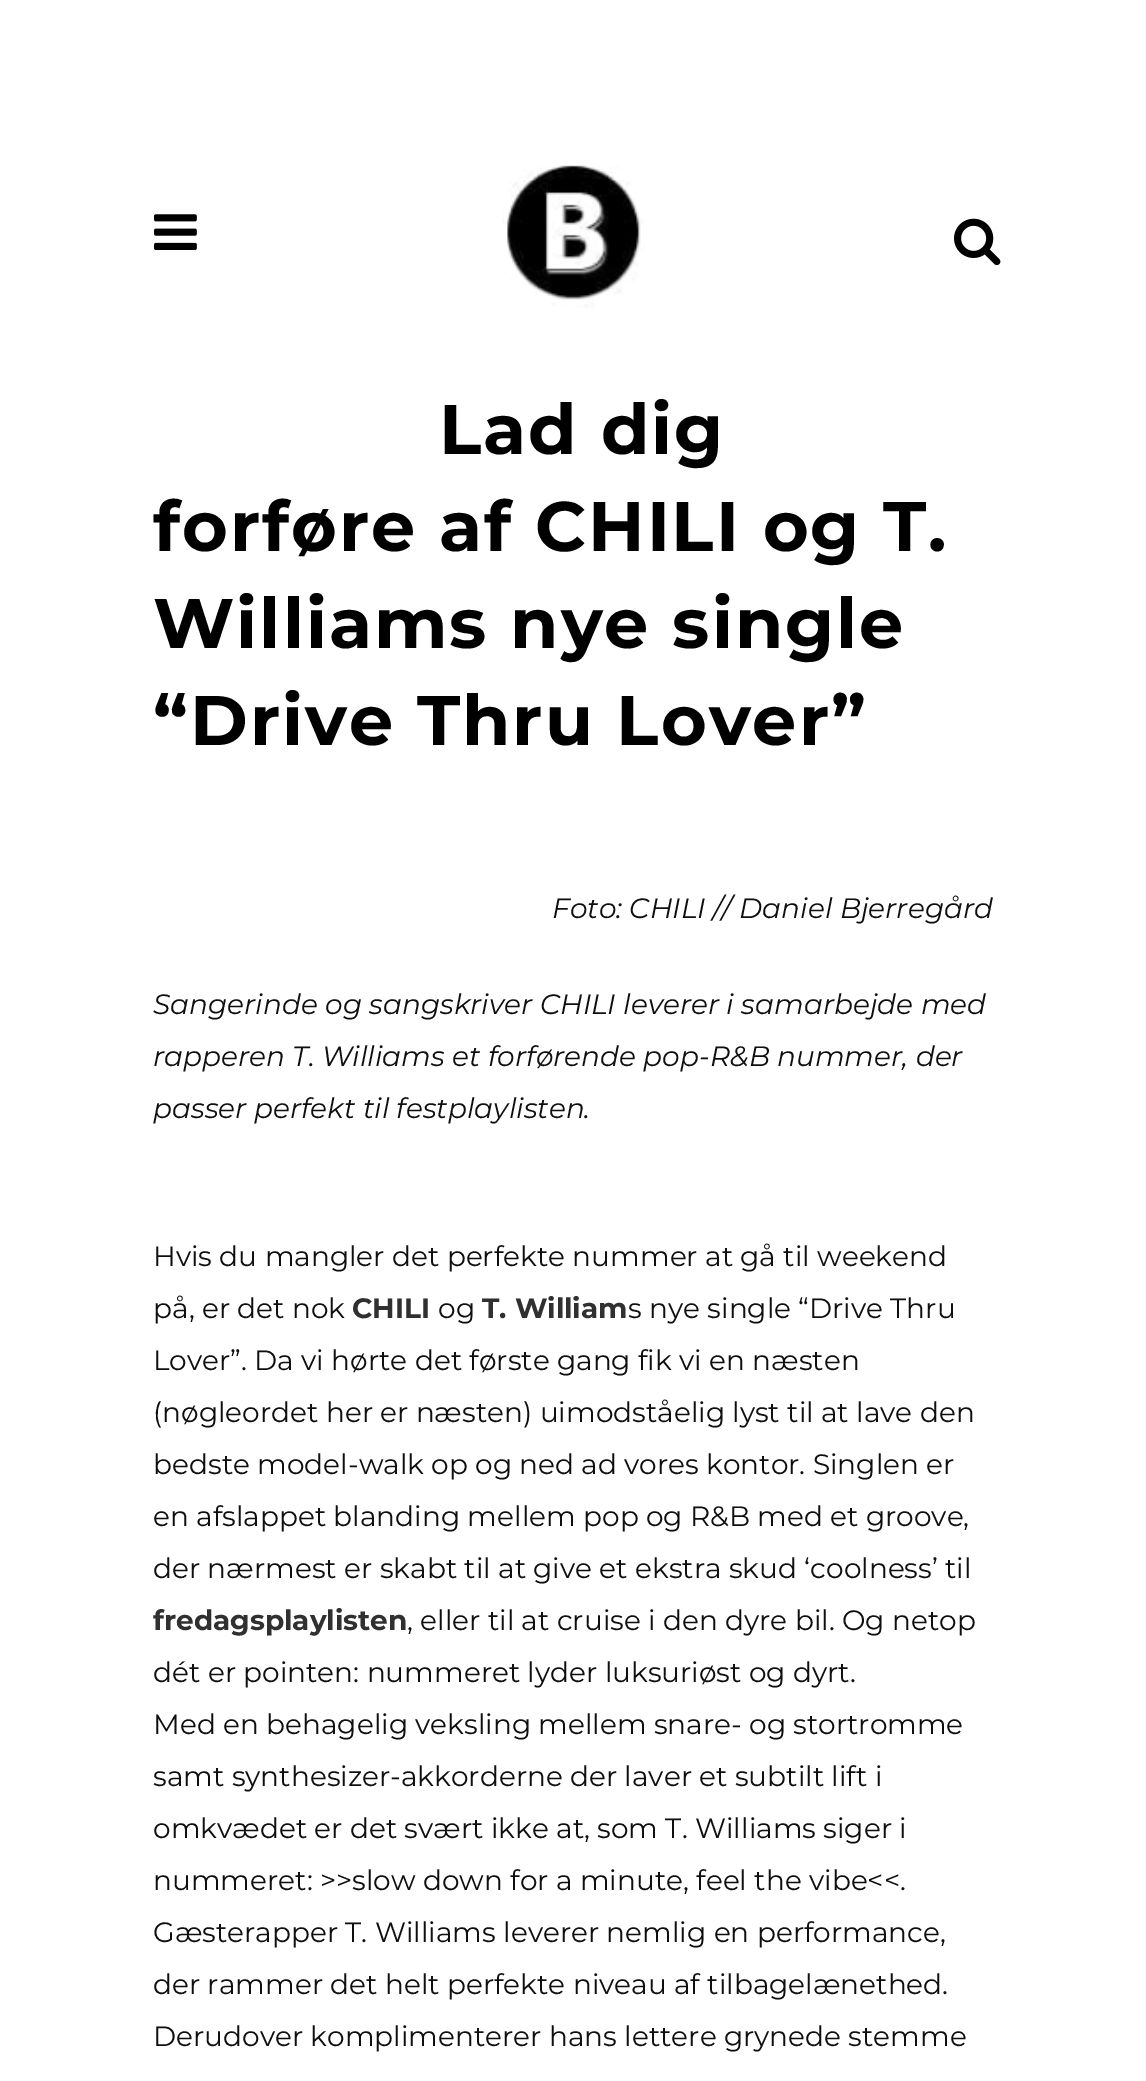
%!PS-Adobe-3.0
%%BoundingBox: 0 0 1146 2081
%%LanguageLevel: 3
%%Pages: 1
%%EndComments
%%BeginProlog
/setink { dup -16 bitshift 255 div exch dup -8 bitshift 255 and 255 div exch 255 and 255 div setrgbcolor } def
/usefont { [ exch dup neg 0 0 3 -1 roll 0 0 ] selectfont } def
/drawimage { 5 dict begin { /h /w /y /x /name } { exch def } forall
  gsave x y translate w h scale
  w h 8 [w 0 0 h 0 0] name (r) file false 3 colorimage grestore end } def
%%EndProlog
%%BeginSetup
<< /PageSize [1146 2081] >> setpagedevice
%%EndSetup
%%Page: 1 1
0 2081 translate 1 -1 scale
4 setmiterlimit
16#FFFFFF setink
0 0 1146 2081 rectfill
(img1.raw) 154 214 43 36 drawimage
(img2.raw) 502 165 142 143 drawimage
(img3.raw) 954 218 47 48 drawimage
/Montserrat-Bold 70 usefont
16#000000 setink
439 454 moveto 2 0 (Lad dig) ashow
153 551 moveto 2 0 (forføre af CHILI og T.) ashow
153 648 moveto 2 0 (Williams nye single) ashow
153 745 moveto 2 0 (“Drive Thru Lover”) ashow
/Montserrat-Italic 28 usefont
16#0F0F0F setink
[
    [(Foto: CHILI // Daniel Bjerregård) 552 918]
    [(Sangerinde og sangskriver CHILI leverer i samarbejde med) 153 1014]
    [(rapperen T. Williams et forførende pop-R&B nummer, der) 153 1066]
    [(passer perfekt til festplaylisten.) 153 1118]
] { aload pop moveto show } forall
/Montserrat-Regular 28 usefont
153 1266 moveto (Hvis du mangler det perfekte nummer at gå til weekend) show
153 1318 moveto (på, er det nok) show
/Montserrat-Bold 28 usefont
16#303030 setink
352 1318 moveto (CHILI) show
/Montserrat-Regular 28 usefont
16#0F0F0F setink
438 1318 moveto (og) show
/Montserrat-Bold 28 usefont
16#303030 setink
482 1318 moveto (T. William) show
/Montserrat-Regular 28 usefont
16#0F0F0F setink
[
    [(s nye single “Drive Thru) 628 1318]
    [(Lover”. Da vi hørte det første gang fik vi en næsten) 153 1370]
    [(\(nøgleordet her er næsten\) uimodståelig lyst til at lave den) 153 1422]
    [(bedste model-walk op og ned ad vores kontor. Singlen er) 153 1474]
    [(en afslappet blanding mellem pop og R&B med et groove,) 153 1526]
    [(der nærmest er skabt til at give et ekstra skud ‘coolness’ til) 153 1578]
] { aload pop moveto show } forall
/Montserrat-Bold 28 usefont
16#303030 setink
153 1630 moveto (fredagsplaylisten) show
/Montserrat-Regular 28 usefont
16#0F0F0F setink
[
    [(, eller til at cruise i den dyre bil. Og netop) 407 1630]
    [(dét er pointen: nummeret lyder luksuriøst og dyrt.) 153 1682]
    [(Med en behagelig veksling mellem snare- og stortromme) 153 1734]
    [(samt synthesizer-akkorderne der laver et subtilt lift i) 153 1786]
    [(omkvædet er det svært ikke at, som T. Williams siger i) 153 1838]
    [(nummeret: >>slow down for a minute, feel the vibe<<.) 153 1890]
    [(Gæsterapper T. Williams leverer nemlig en performance,) 153 1942]
    [(der rammer det helt perfekte niveau af tilbagelænethed.) 153 1994]
    [(Derudover komplimenterer hans lettere grynede stemme) 153 2046]
] { aload pop moveto show } forall
showpage
%%EOF
